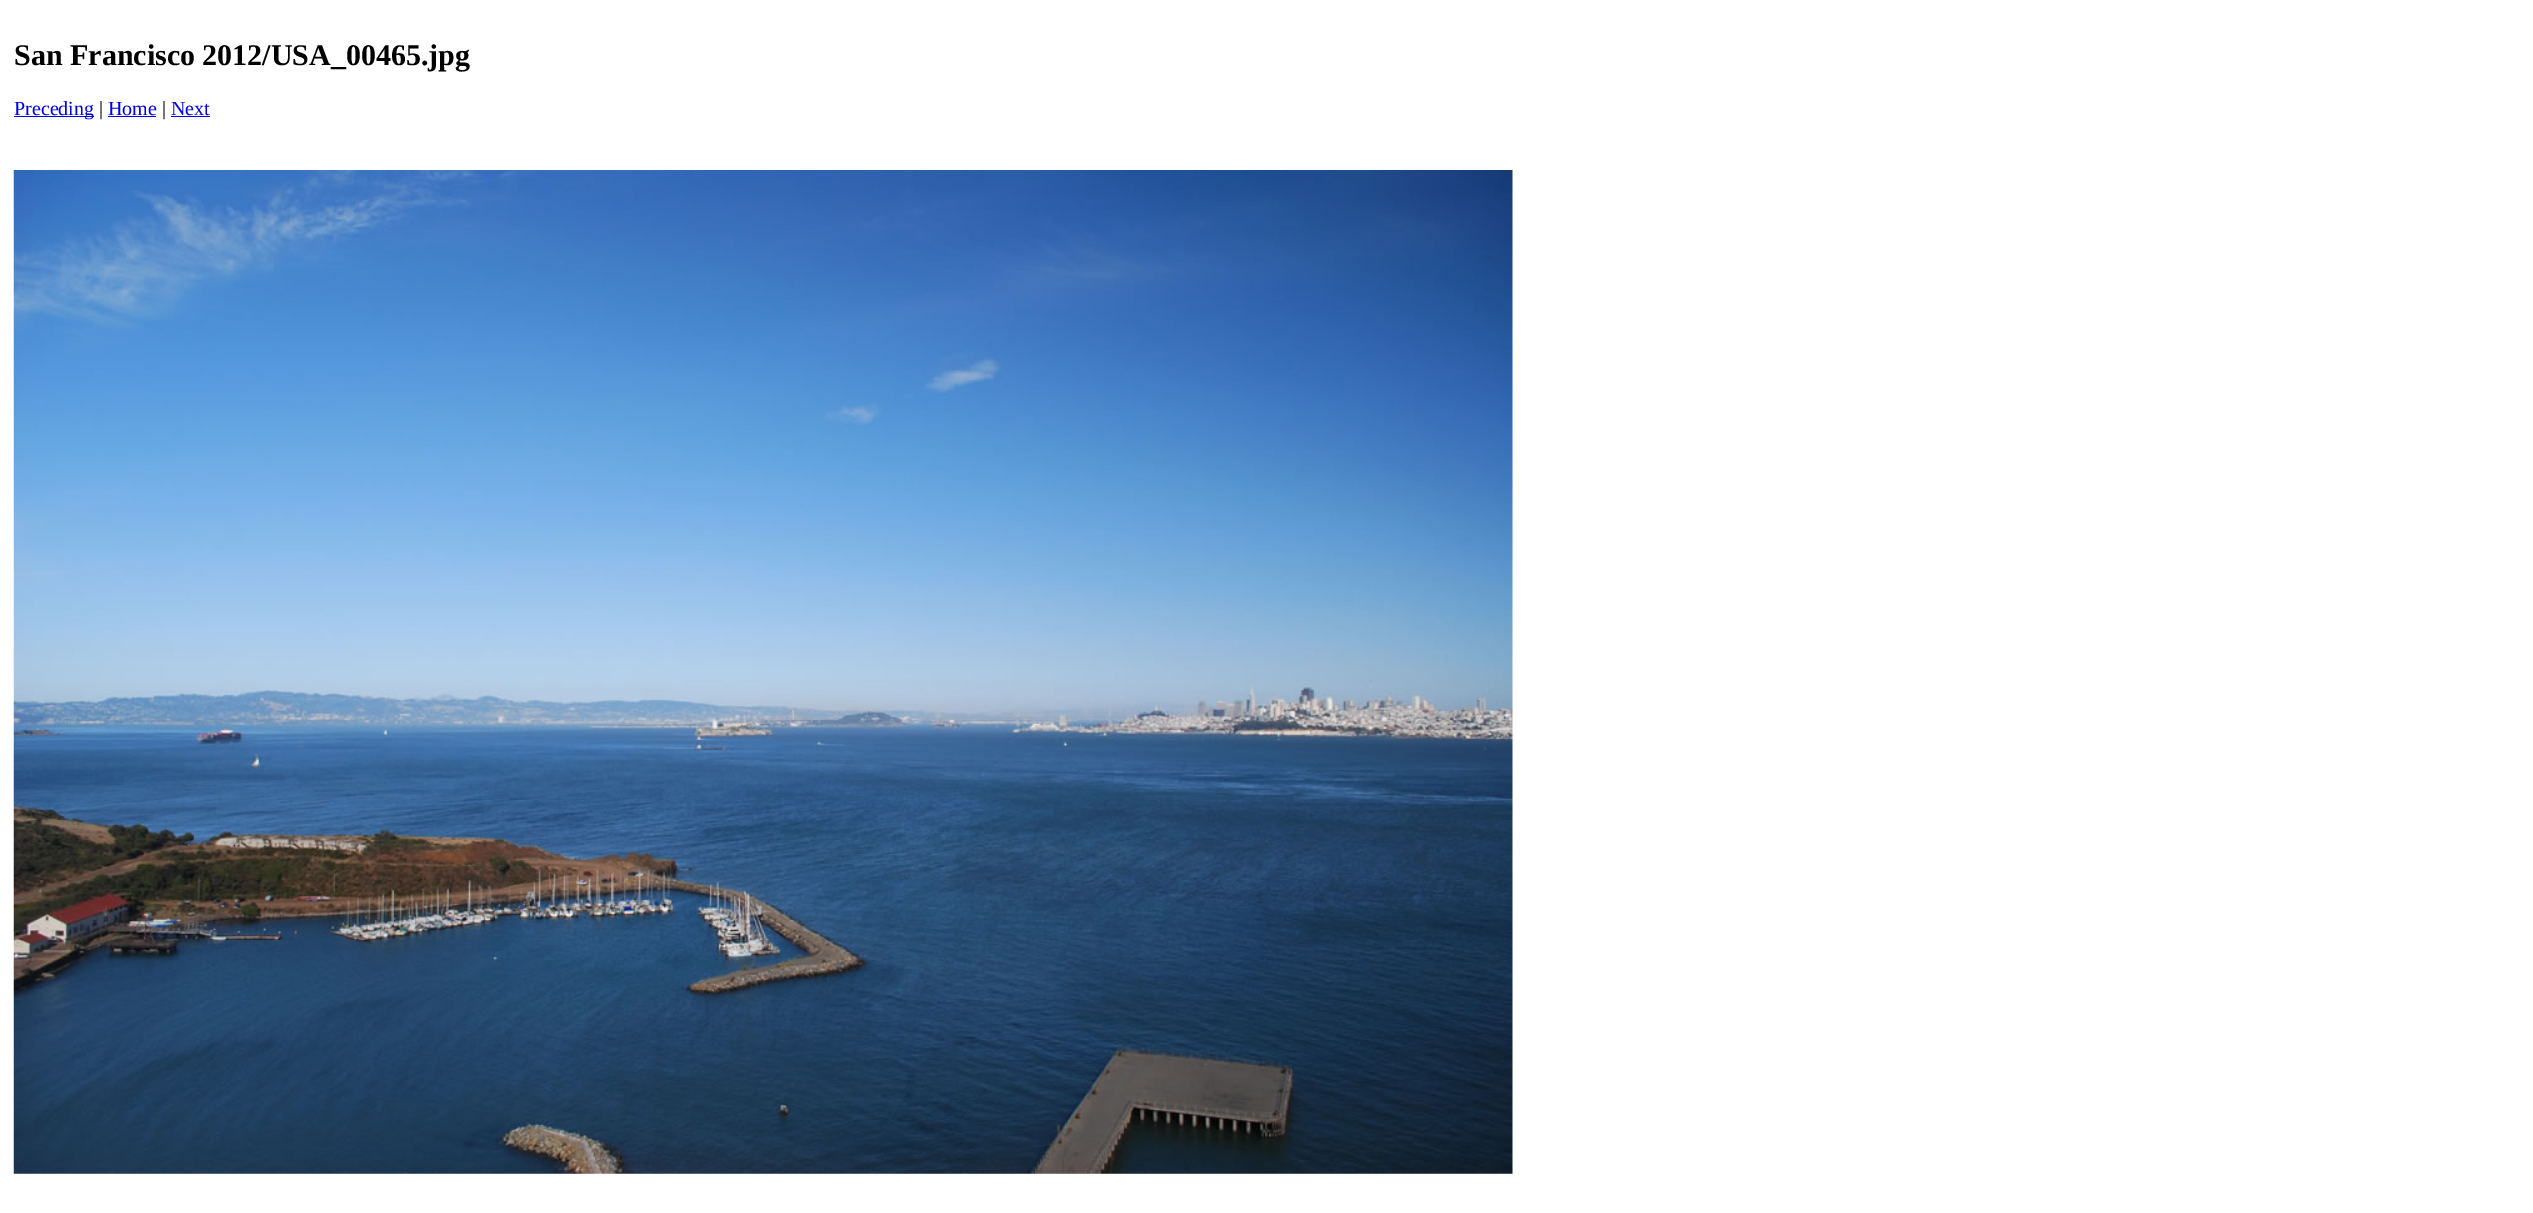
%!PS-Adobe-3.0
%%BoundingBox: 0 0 2533 1213
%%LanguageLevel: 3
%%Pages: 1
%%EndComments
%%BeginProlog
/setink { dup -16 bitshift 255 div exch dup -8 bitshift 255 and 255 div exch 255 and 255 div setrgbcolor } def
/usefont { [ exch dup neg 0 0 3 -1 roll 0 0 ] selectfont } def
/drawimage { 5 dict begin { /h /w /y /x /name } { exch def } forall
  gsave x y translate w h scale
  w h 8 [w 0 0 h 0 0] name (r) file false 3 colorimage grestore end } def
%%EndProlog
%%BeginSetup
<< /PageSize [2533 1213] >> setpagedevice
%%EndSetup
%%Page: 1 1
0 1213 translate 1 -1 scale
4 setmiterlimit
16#FFFFFF setink
0 0 2533 1213 rectfill
/LiberationSerif-Bold 30 usefont
16#000000 setink
14 65 moveto (San Francisco 2012/USA_00465.jpg) show
16#0000EE setink
14 116 80 1 rectfill
/LiberationSerif-Regular 20 usefont
14 115 moveto (Preceding) show
16#000000 setink
99 115 moveto (|) show
16#0000EE setink
108 115 moveto (Home) show
108 116 48 1 rectfill
16#000000 setink
162 115 moveto (|) show
16#0000EE setink
171 115 moveto (Next) show
171 116 39 1 rectfill
(img1.raw) 13 170 1500 1004 drawimage
showpage
%%EOF
